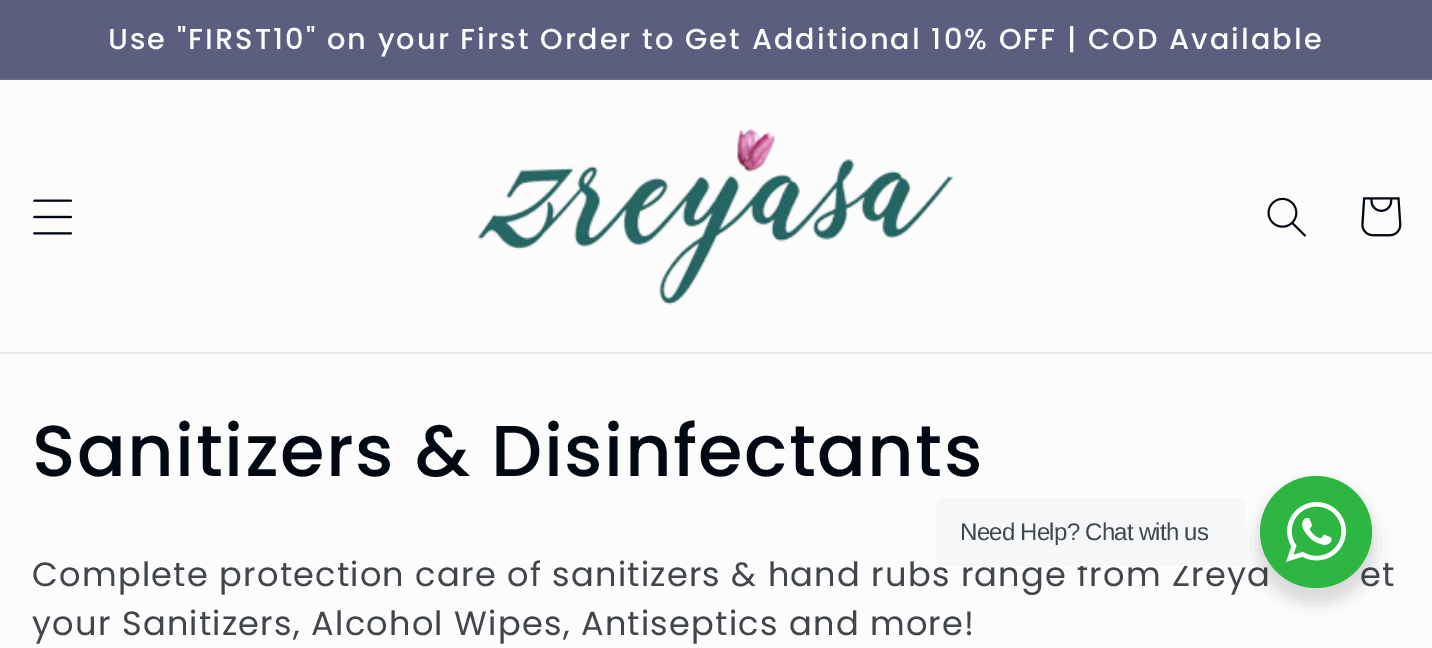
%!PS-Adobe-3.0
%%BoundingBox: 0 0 1432 648
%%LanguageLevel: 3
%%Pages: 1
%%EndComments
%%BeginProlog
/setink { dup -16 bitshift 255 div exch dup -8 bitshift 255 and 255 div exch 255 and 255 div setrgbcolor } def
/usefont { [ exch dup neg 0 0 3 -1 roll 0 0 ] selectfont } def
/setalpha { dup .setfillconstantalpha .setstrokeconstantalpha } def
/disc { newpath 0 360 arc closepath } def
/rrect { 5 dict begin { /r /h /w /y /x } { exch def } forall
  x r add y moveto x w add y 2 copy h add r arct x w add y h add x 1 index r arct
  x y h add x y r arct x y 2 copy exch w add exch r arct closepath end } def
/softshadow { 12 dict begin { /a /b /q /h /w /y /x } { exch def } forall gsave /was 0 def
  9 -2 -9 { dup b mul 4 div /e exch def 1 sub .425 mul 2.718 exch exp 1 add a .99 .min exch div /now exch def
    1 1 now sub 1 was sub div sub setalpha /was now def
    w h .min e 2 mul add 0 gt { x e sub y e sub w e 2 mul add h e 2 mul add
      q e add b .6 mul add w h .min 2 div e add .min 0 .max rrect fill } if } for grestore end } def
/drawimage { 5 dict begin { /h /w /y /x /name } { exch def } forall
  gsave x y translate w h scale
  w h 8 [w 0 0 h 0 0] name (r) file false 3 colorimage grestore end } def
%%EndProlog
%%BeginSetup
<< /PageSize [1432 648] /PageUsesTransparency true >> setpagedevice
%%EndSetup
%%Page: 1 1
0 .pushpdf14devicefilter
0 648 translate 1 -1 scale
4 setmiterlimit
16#FCFCFC setink
0 0 1432 648 rectfill
16#5C5E80 setink
0 0 1432 78 rectfill
16#696B8A setink
0 78 1432 2 rectfill
/Poppins-Medium 28.8 usefont
16#FCFCFC setink
108 49 moveto 2.1 0 (Use "FIRST10" on your First Order to Get Additional 10% OFF | COD Available) ashow
16#E8E9E9 setink
0 352 1432 2 rectfill
(img1.raw) 33 199 40 36 drawimage
(img2.raw) 477 129 476 176 drawimage
(img3.raw) 1267 197 39 40 drawimage
(img4.raw) 1361 197 41 40 drawimage
/Poppins-Medium 72 usefont
16#020912 setink
32 476 moveto 1.45 0 (Sanitizers & Disinfectants) ashow
/Poppins-Regular 33.6 usefont
16#41464D setink
32 586 moveto -0.1 0 32 1.25 0 (Complete protection care of sanitizers & hand rubs range from Zreya) awidthshow
1360 586 moveto -0.1 0 32 1.25 0 (et) awidthshow
32 635 moveto 1.25 0 (your Sanitizers, Alcohol Wipes, Antiseptics and more!) ashow
16#000000 setink
1256 484 120 120 60 8 0.14 softshadow
16#F5F7F9 setink
936 498 310 68 8 rrect fill
/LiberationSans-Regular 24 usefont
16#41464D setink
960 540 moveto -0.75 0 (Need Help? Chat with us) ashow
16#2DB742 setink
1316 532 56 disc fill
(img5.raw) 1286 502 60 60 drawimage
.poppdf14devicefilter showpage
%%EOF
